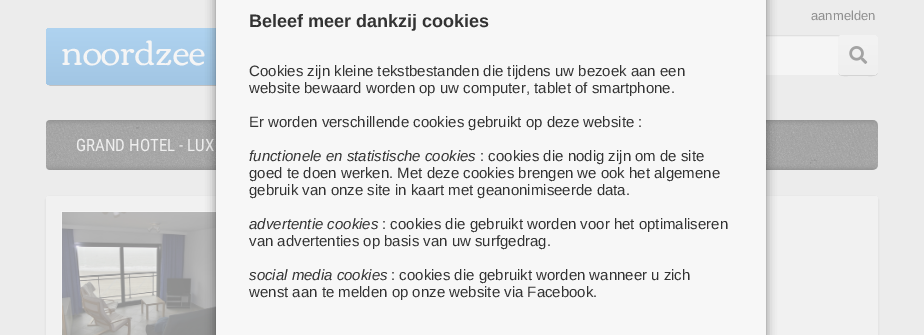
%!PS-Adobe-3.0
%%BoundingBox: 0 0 924 335
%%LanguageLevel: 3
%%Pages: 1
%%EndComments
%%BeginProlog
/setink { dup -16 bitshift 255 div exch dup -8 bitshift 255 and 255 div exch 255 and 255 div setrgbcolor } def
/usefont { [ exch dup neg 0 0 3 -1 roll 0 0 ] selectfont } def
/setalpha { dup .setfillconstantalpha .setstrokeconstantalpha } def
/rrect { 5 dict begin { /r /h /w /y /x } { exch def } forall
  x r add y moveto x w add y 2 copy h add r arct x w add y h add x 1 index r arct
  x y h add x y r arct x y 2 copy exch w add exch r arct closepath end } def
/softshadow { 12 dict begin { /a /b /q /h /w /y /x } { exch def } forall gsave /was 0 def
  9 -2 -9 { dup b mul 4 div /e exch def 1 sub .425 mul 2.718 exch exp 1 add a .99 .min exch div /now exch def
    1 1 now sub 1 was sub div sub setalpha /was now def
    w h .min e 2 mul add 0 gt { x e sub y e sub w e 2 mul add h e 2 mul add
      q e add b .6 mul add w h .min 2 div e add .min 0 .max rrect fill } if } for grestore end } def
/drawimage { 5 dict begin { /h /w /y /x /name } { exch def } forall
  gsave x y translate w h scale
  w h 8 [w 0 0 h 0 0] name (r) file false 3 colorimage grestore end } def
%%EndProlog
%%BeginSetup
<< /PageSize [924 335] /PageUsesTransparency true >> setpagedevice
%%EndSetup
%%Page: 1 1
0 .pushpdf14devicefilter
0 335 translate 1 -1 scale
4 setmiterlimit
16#ECECEC setink
0 0 924 335 rectfill
/LiberationSans-Regular 13 usefont
16#8F8F8F setink
811 20 moveto (aanmelden) show
16#C2C2C2 setink
48 84 moveto 48 85 50 86 51 86 curveto 220 86 lineto 222 86 224 84 224 82 curveto 224 33 lineto 224 32 223 30 222 30 curveto 223 32 lineto 223 81 lineto 223 83 221 85 219 85 curveto 50 85 lineto closepath fill
gsave 46 28 177 57 4 rrect clip newpath
<< /ShadingType 2 /ColorSpace /DeviceRGB /Coords [135 28 135 85] /Extend [true true] /Function << /FunctionType 2 /Domain [0 1] /C0 [0.686 0.827 0.941] /C1 [0.635 0.776 0.894] /N 1 >> >> shfill grestore
/Corben-Regular 34 usefont
16#F5F5F5 setink
61 65 moveto (noordzee) show
530 35 312 40 4 rrect fill
16#E0E0E0 setink
531.5 73.5 moveto 529.5 71.5 530.5 67.5 530.5 65.5 curveto 530.5 44.5 lineto 530.5 41.5 529.5 35.5 534 35.5 curveto 838 35.5 lineto 840.5 36.5 lineto stroke
0.27 setalpha
16#8F8F8F setink
838 70 moveto 838 77 843 76 848 76 curveto 868 76 lineto 873 76 878 77 878 70 curveto 878 73 876 75 873 75 curveto 843 75 lineto 840 75 838 73 838 70 curveto closepath fill
1 setalpha
gsave 838 35 40 40 5 rrect clip newpath
<< /ShadingType 2 /ColorSpace /DeviceRGB /Coords [858 35 858 75] /Extend [true true] /Function << /FunctionType 2 /Domain [0 1] /C0 [0.953 0.953 0.953] /C1 [0.937 0.937 0.937] /N 1 >> >> shfill grestore
(img1.raw) 849 46 19 18 drawimage
(img2.raw) 46 120 832 50 drawimage
/RobotoCondensed-Regular 17 usefont
16#EEEEEE setink
76 151 moveto (GRAND HOTEL - LUX) show
16#8F8F8F setink
46 197 832 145 4 1 0.27 softshadow
gsave 46 196 832 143 4 rrect clip newpath
<< /ShadingType 2 /ColorSpace /DeviceRGB /Coords [462 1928 462 196] /Extend [true true] /Function << /FunctionType 2 /Domain [0 1] /C0 [0.961 0.961 0.961] /C1 [0.945 0.945 0.945] /N 1 >> >> shfill grestore
16#F5F5F5 setink
61.5 211.5 194 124 rectstroke
(img3.raw) 62 212 154 123 drawimage
16#000000 setink
216 -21 550 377 6 5 0.45 softshadow
16#F7F7F7 setink
216 0 550 335 rectfill
/LiberationSans-Bold 18 usefont
16#333333 setink
249 27 moveto (Beleef meer dankzij cookies) show
/LiberationSans-Regular 15 usefont
[
    [(Cookies zijn kleine tekstbestanden die tijdens uw bezoek aan een) 249 76]
    [(website bewaard worden op uw computer, tablet of smartphone.) 249 93]
    [(Er worden verschillende cookies gebruikt op deze website :) 249 127]
] { aload pop moveto show } forall
/LiberationSans-Italic 15 usefont
249 161 moveto (functionele en statistische cookies) show
/LiberationSans-Regular 15 usefont
[
    [(: cookies die nodig zijn om de site) 480 161]
    [(goed te doen werken. Met deze cookies brengen we ook het algemene) 249 178]
    [(gebruik van onze site in kaart met geanonimiseerde data.) 249 195]
] { aload pop moveto show } forall
/LiberationSans-Italic 15 usefont
249 229 moveto (advertentie cookies) show
/LiberationSans-Regular 15 usefont
382 229 moveto (: cookies die gebruikt worden voor het optimaliseren) show
249 246 moveto (van advertenties op basis van uw surfgedrag.) show
/LiberationSans-Italic 15 usefont
249 280 moveto (social media cookies) show
/LiberationSans-Regular 15 usefont
391 280 moveto (: cookies die gebruikt worden wanneer u zich) show
249 297 moveto (wenst aan te melden op onze website via Facebook.) show
.poppdf14devicefilter showpage
%%EOF
